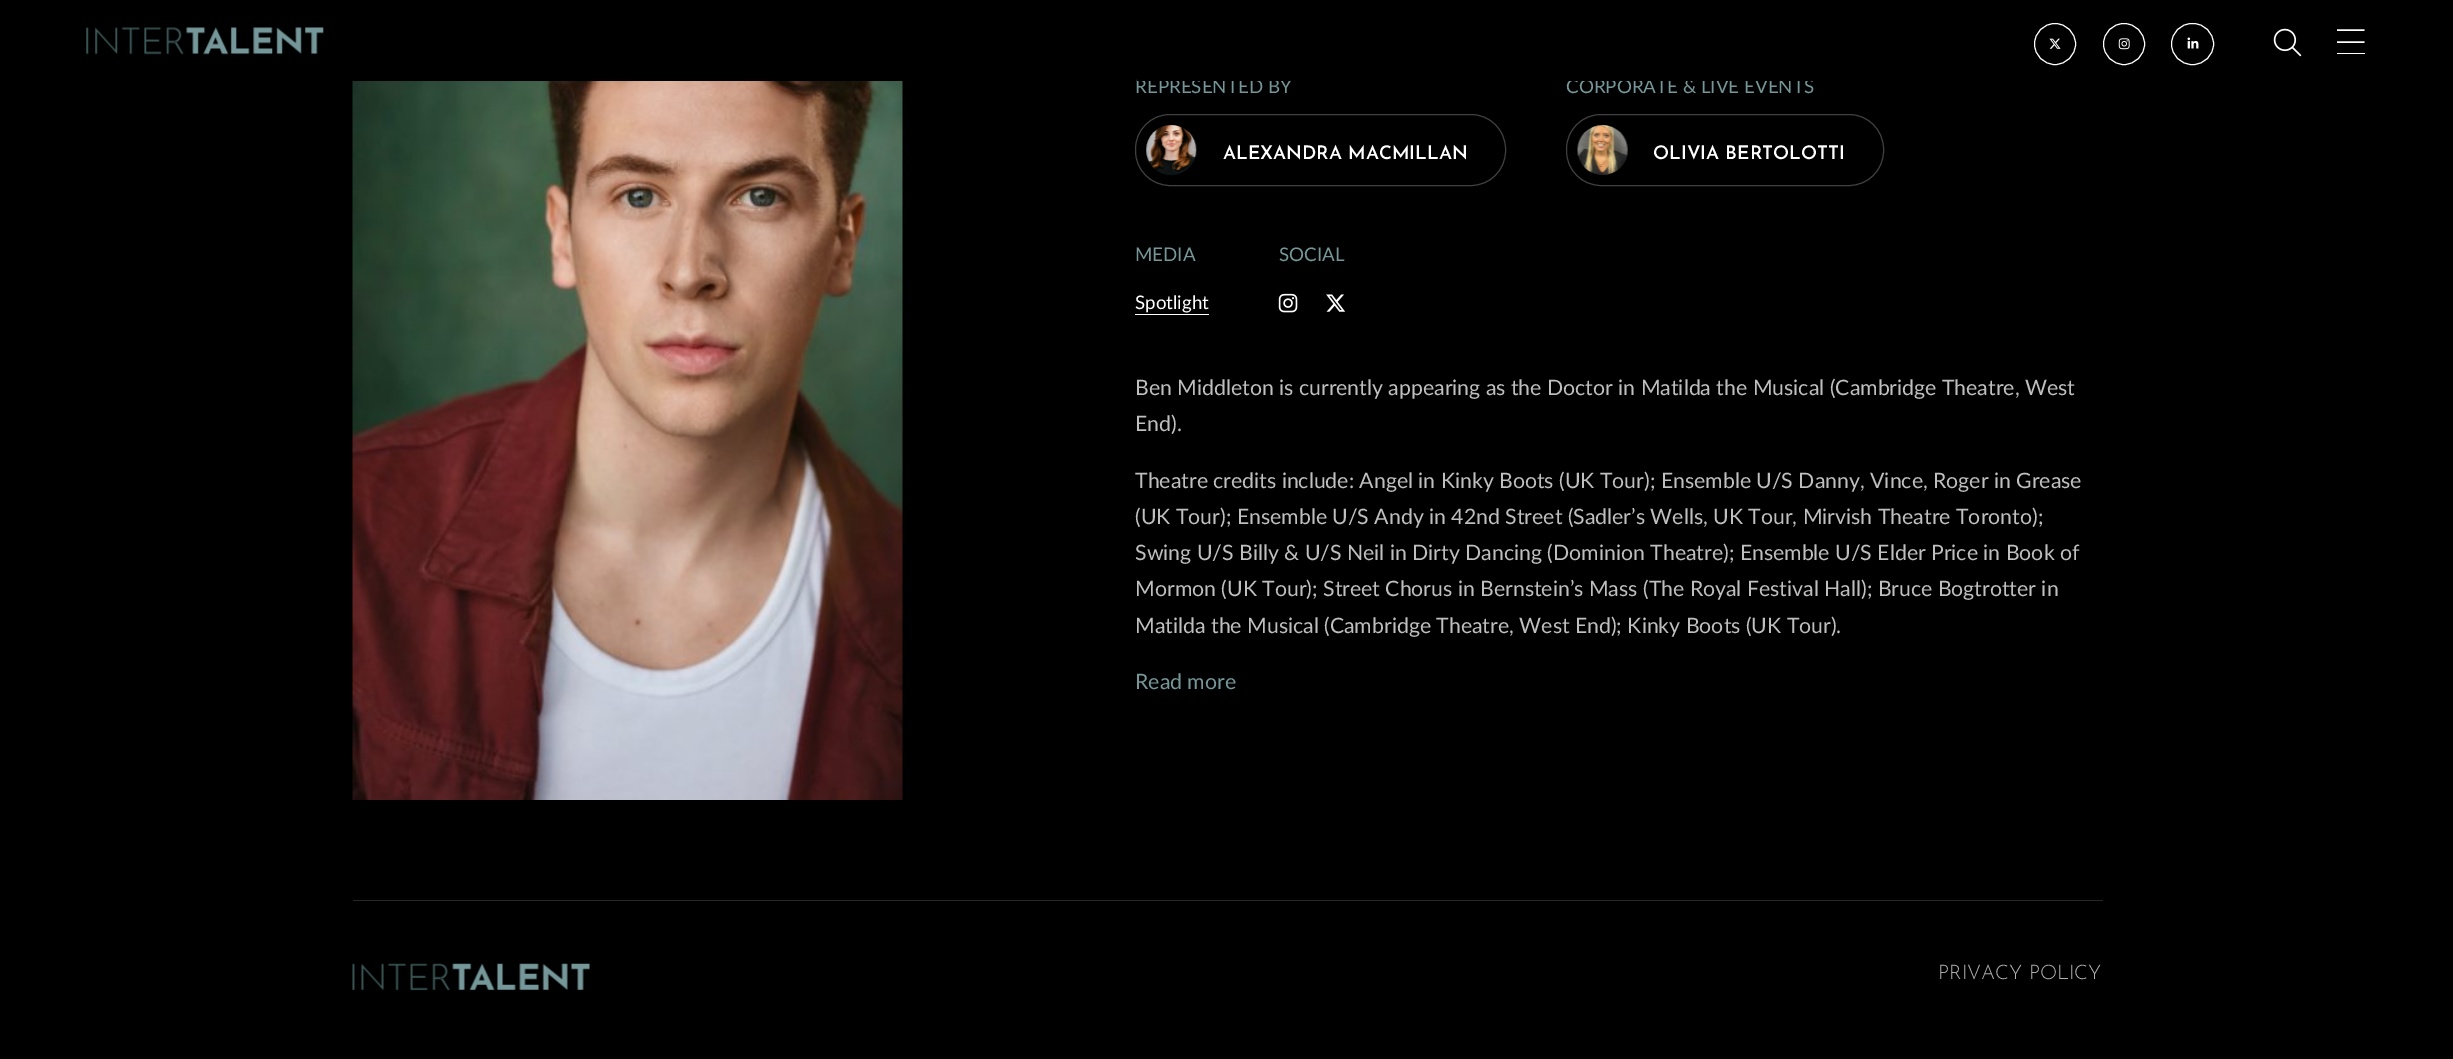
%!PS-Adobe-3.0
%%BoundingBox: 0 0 2453 1059
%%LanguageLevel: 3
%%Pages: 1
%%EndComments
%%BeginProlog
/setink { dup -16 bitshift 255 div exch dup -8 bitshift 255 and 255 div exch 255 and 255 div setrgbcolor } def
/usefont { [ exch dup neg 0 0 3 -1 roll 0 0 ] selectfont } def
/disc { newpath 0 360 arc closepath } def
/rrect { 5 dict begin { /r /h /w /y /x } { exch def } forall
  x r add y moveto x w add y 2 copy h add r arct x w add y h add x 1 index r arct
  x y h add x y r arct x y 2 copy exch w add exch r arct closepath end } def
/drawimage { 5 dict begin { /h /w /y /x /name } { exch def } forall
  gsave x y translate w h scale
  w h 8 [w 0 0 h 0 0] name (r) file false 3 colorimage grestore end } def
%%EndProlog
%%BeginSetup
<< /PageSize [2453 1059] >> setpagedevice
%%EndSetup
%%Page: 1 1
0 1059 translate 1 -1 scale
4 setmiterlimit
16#000000 setink
0 0 2453 1059 rectfill
/Lato-Regular 18.75 usefont
16#759799 setink
1135 93 moveto (REPRESENTED BY) show
1566 93 moveto (CORPORATE & LIVE EVENTS) show
16#000000 setink
1137 79 676 2 rectfill
(img1.raw) 86 27 238 28 drawimage
16#FFFFFF setink
2055 44 20.5 disc stroke
(img2.raw) 2049 38 12 11 drawimage
2124 44 20.5 disc stroke
(img3.raw) 2118 38 12 12 drawimage
2171.5 23.5 42 41 20.5 rrect stroke
(img4.raw) 2187 37 12 12 drawimage
(img5.raw) 2273 28 29 29 drawimage
1.4 setlinewidth
2337 30 moveto 2364.5 30 lineto 2337 42 moveto 2364.5 42 lineto stroke
2337 53 28 1 rectfill
(img6.raw) 352 81 551 719 drawimage
16#404040 setink
1 setlinewidth
1135.5 114.5 370 71 34.5 rrect stroke
16#141414 setink
1171 150 25 disc fill
(img7.raw) 1146 125 51 50 drawimage
/JosefinSans-SemiBold 18.75 usefont
16#FFFFFF setink
1223 159 moveto (ALEXANDRA MACMILLAN) show
16#404040 setink
1566.5 114.5 317 71 34.5 rrect stroke
16#141414 setink
1603 150 25 disc fill
(img8.raw) 1577 125 51 50 drawimage
16#FFFFFF setink
1653 159 moveto (OLIVIA BERTOLOTTI) show
/Lato-Regular 18.75 usefont
16#759799 setink
1135 261 moveto (MEDIA) show
16#FFFFFF setink
1135 309 moveto (Spotlight) show
1135 314 74 1 rectfill
16#759799 setink
1279 261 moveto (SOCIAL) show
(img9.raw) 1278 293 20 20 drawimage
(img10.raw) 1326 294 20 18 drawimage
/Lato-Regular 21.25 usefont
16#BFBFBF setink
[
    [(Ben Middleton is currently appearing as the Doctor in Matilda the Musical \(Cambridge Theatre, West) 1135 395]
    [(End\).) 1135 431]
    [(Theatre credits include: Angel in Kinky Boots \(UK Tour\); Ensemble U/S Danny, Vince, Roger in Grease) 1135 488]
    [(\(UK Tour\); Ensemble U/S Andy in 42nd Street \(Sadler’s Wells, UK Tour, Mirvish Theatre Toronto\);) 1135 524]
    [(Swing U/S Billy & U/S Neil in Dirty Dancing \(Dominion Theatre\); Ensemble U/S Elder Price in Book of) 1135 560]
    [(Mormon \(UK Tour\); Street Chorus in Bernstein’s Mass \(The Royal Festival Hall\); Bruce Bogtrotter in) 1135 596]
    [(Matilda the Musical \(Cambridge Theatre, West End\); Kinky Boots \(UK Tour\).) 1135 633]
] { aload pop moveto show } forall
16#759799 setink
1135 689 moveto (Read more) show
16#262626 setink
353 900 1750 1 rectfill
(img11.raw) 352 963 238 28 drawimage
/JosefinSans-Light 20 usefont
16#B3B3B3 setink
1938 979 moveto (PRIVACY POLICY) show
showpage
%%EOF
